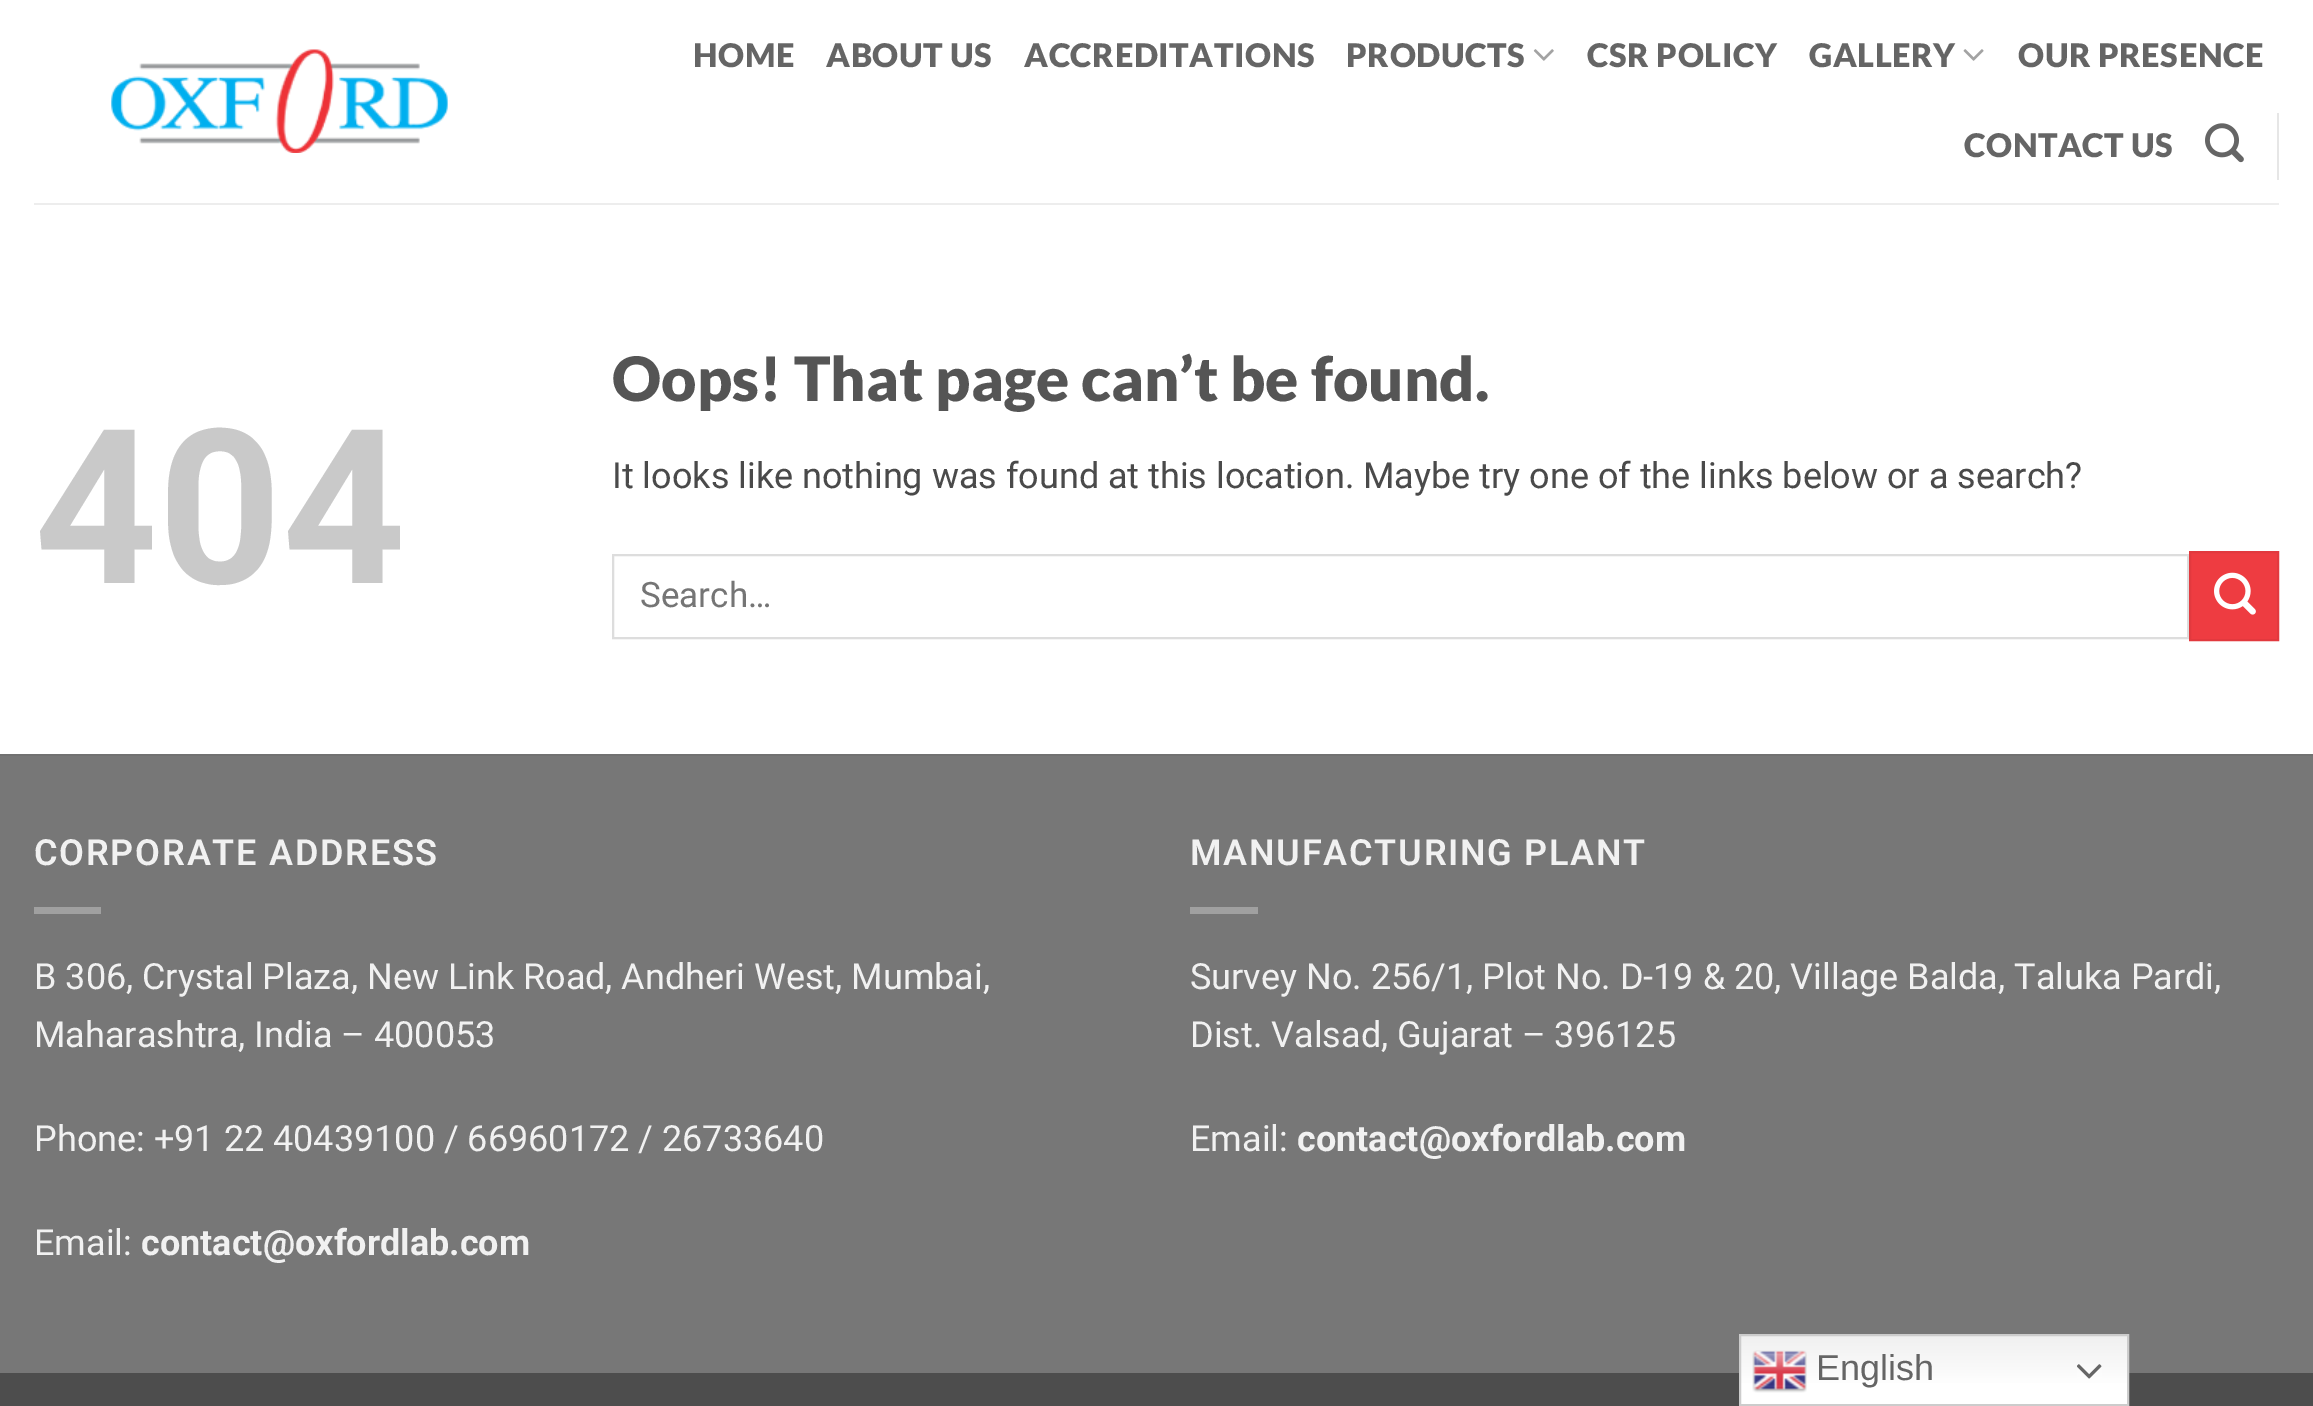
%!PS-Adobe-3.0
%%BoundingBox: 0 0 2313 1406
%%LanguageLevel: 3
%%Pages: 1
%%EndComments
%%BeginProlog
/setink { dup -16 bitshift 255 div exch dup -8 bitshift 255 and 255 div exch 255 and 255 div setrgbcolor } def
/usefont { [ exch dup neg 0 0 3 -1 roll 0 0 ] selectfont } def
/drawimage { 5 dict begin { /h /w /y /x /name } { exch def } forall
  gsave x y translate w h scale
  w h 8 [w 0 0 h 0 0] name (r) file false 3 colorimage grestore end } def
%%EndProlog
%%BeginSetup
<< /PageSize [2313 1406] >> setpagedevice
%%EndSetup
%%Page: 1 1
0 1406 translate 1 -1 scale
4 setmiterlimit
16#FFFFFF setink
0 0 2313 1406 rectfill
(img1.raw) 111 49 337 104 drawimage
/Lato-Black 32.5 usefont
16#656565 setink
693 67 moveto 0.6 0 (HOME) ashow
826 67 moveto 0.6 0 (ABOUT US) ashow
1024 67 moveto 0.6 0 (ACCREDITATIONS) ashow
1346 67 moveto 0.6 0 (PRODUCTS) ashow
(img2.raw) 1533 49 21 12 drawimage
1587 67 moveto 0.6 0 (CSR POLICY) ashow
1809 67 moveto 0.6 0 (GALLERY) ashow
(img3.raw) 1963 49 21 12 drawimage
2018 67 moveto 0.6 0 (OUR PRESENCE) ashow
1964 157 moveto 0.6 0 (CONTACT US) ashow
(img4.raw) 2205 123 39 40 drawimage
16#E6E6E6 setink
2277 113 2 67 rectfill
16#EDEDED setink
34 203 2245 2 rectfill
/Roboto-Bold 216 usefont
16#C9C9C9 setink
34 583 moveto (404) show
/Lato-Black 61.25 usefont
16#555555 setink
612 401 moveto (Oops! That page can’t be found.) show
/Roboto-Regular 36 usefont
16#4A4A4A setink
612 488 moveto (It looks like nothing was found at this location. Maybe try one of the links below or a search?) show
16#DDDDDD setink
2 setlinewidth
613 555 1575 83 rectstroke
/Roboto-Regular 35 usefont
16#757575 setink
640 607 moveto (Search…) show
16#EE3C41 setink
2190 552 moveto 2278 552 lineto 2278 640 lineto 2190 640 lineto closepath gsave fill grestore
16#E2393E setink
stroke
(img5.raw) 2214 572 42 43 drawimage
16#777777 setink
0 756 2313 617 rectfill
16#717171 setink
0 754 2313 2 rectfill
/Roboto-SemiBold 36 usefont
16#F1F1F1 setink
34 865 moveto 1.75 0 (CORPORATE ADDRESS) ashow
16#A0A0A0 setink
34 907 67 7 rectfill
/Roboto-Regular 36 usefont
16#F1F1F1 setink
[
    [(B 306, Crystal Plaza, New Link Road, Andheri West, Mumbai,) 34 989]
    [(Maharashtra, India – 400053) 34 1047]
    [(Phone: +91 22 40439100 / 66960172 / 26733640) 34 1151]
    [(Email:) 34 1255]
] { aload pop moveto show } forall
/Roboto-Bold 36 usefont
141 1255 moveto (contact@oxfordlab.com) show
/Roboto-SemiBold 36 usefont
1190 865 moveto 1.75 0 (MANUFACTURING PLANT) ashow
16#A0A0A0 setink
1190 907 68 7 rectfill
/Roboto-Regular 36 usefont
16#F1F1F1 setink
[
    [(Survey No. 256/1, Plot No. D-19 & 20, Village Balda, Taluka Pardi,) 1190 989]
    [(Dist. Valsad, Gujarat – 396125) 1190 1047]
    [(Email:) 1190 1151]
] { aload pop moveto show } forall
/Roboto-Bold 36 usefont
1297 1151 moveto (contact@oxfordlab.com) show
16#4D4D4D setink
0 1373 2313 33 rectfill
gsave 1741 1336 moveto 2127 1336 lineto 2127 1404 lineto 1741 1404 lineto closepath clip newpath
<< /ShadingType 2 /ColorSpace /DeviceRGB /Coords [1934 1334 1934 1406] /Extend [true true] /Function << /FunctionType 3 /Domain [0 1] /Functions [<< /FunctionType 2 /Domain [0 1] /C0 [0.937 0.937 0.937] /C1 [1 1 1] /N 1 >> << /FunctionType 2 /Domain [0 1] /C0 [1 1 1] /C1 [1 1 1] /N 1 >>] /Bounds [0.7] /Encode [0 1 0 1] >> >> shfill grestore
16#CCCCCC setink
1740 1335 388 70 rectstroke
(img6.raw) 1752 1350 55 43 drawimage
/LiberationSans-Regular 36 usefont
16#656565 setink
1816 1380 moveto (English) show
(img7.raw) 2077 1364 25 15 drawimage
showpage
%%EOF
